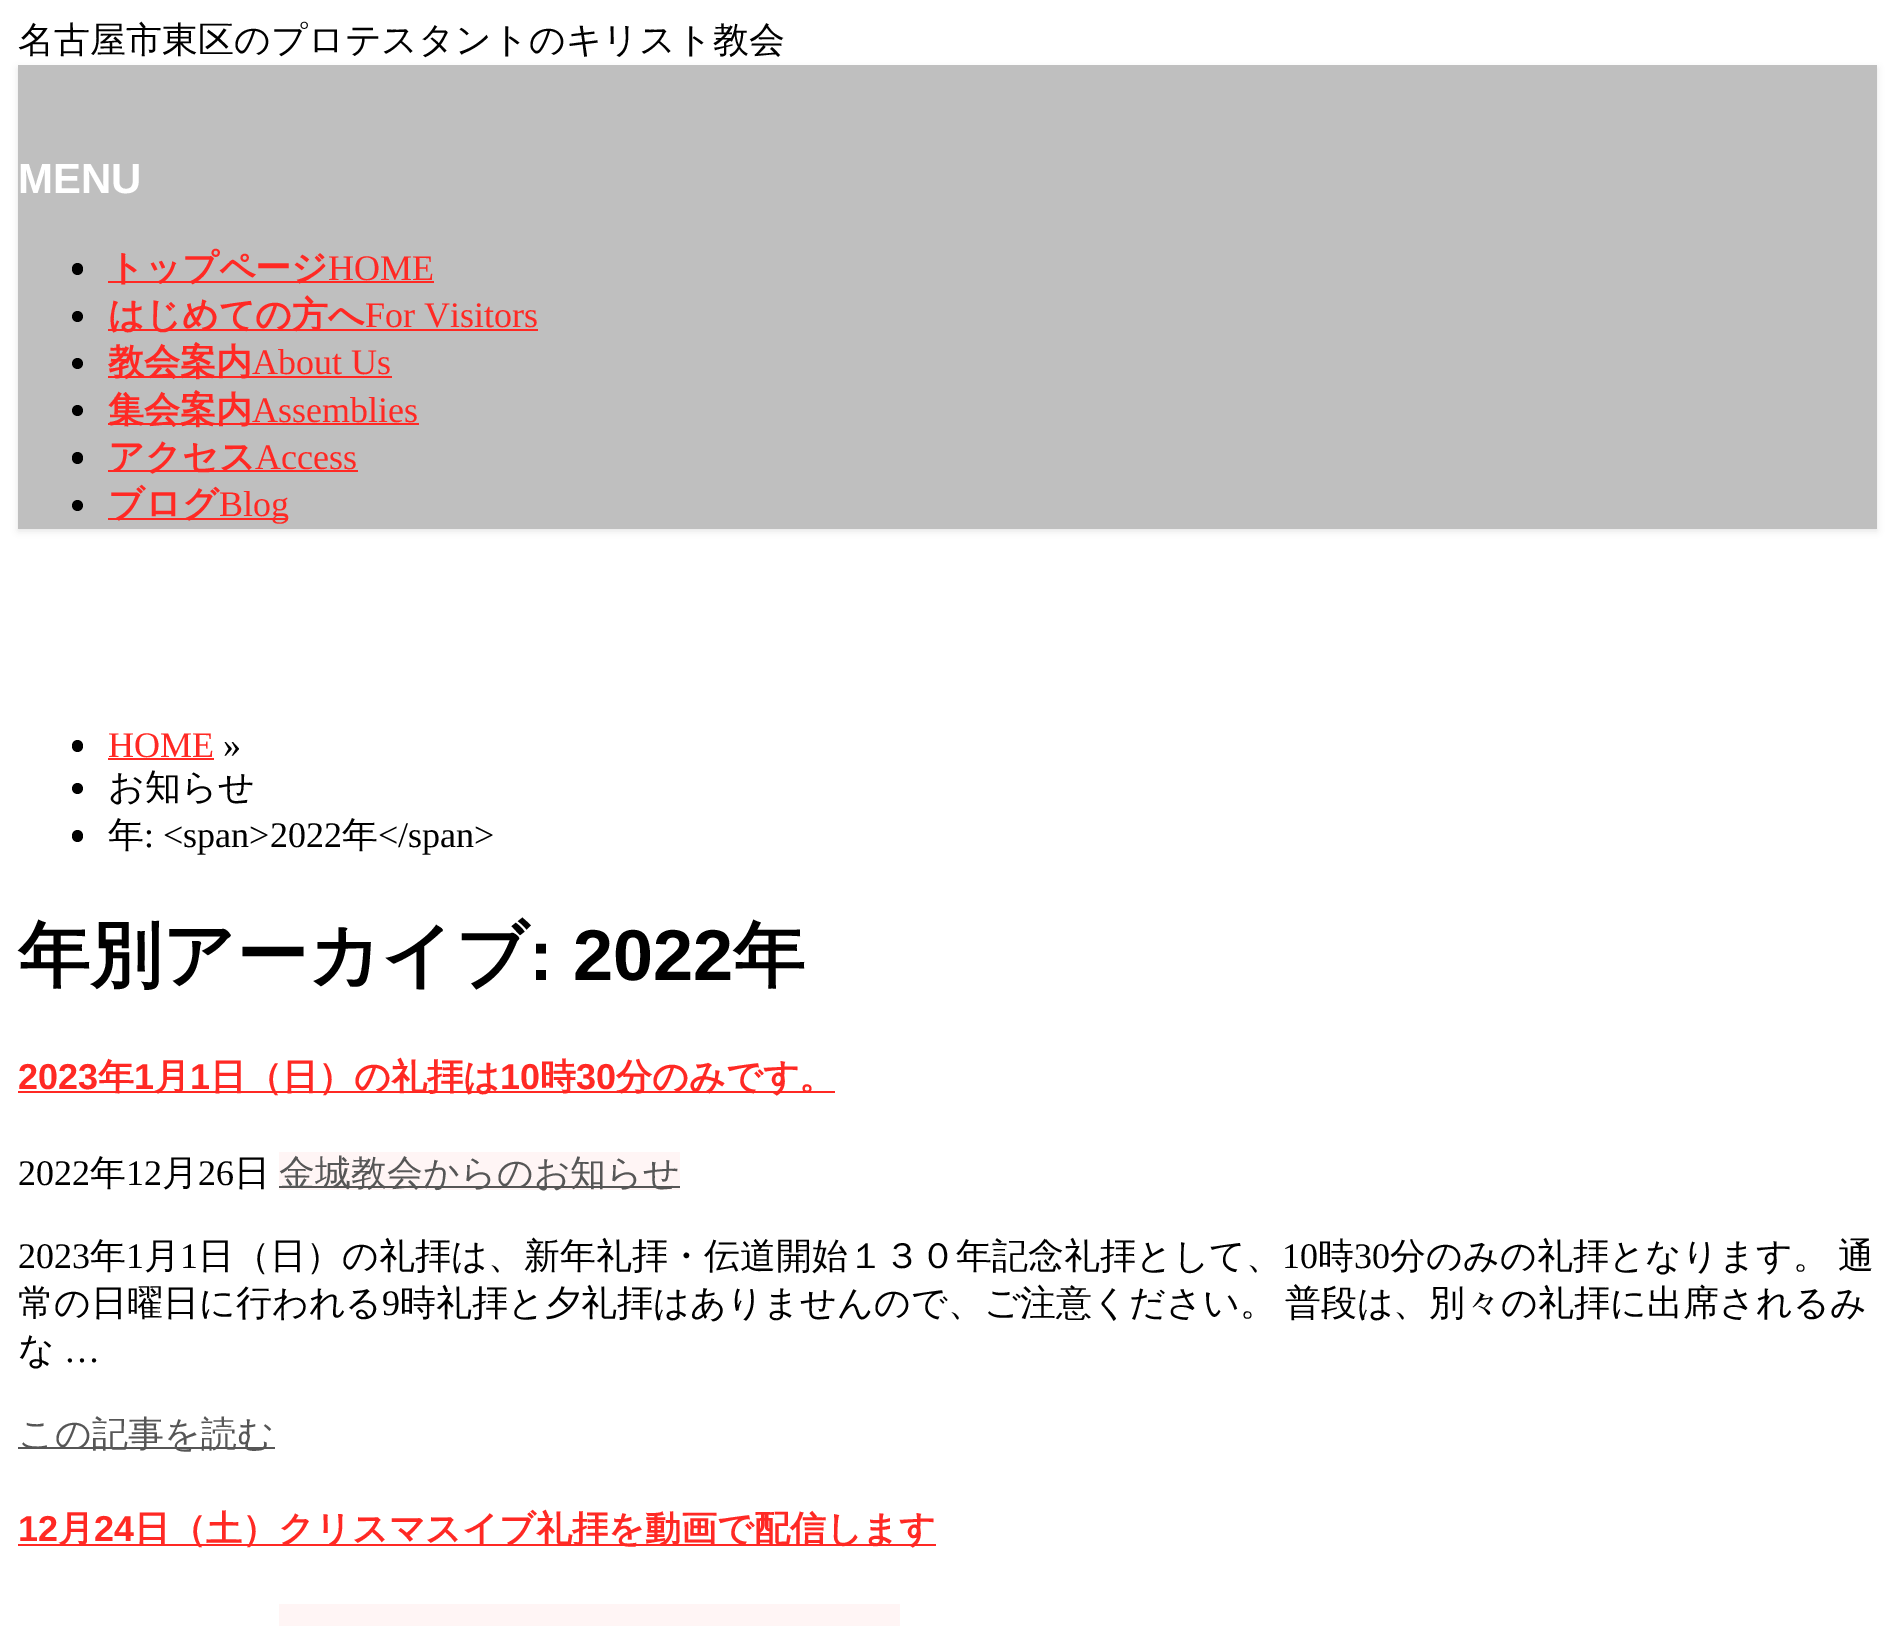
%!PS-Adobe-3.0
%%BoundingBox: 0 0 1894 1626
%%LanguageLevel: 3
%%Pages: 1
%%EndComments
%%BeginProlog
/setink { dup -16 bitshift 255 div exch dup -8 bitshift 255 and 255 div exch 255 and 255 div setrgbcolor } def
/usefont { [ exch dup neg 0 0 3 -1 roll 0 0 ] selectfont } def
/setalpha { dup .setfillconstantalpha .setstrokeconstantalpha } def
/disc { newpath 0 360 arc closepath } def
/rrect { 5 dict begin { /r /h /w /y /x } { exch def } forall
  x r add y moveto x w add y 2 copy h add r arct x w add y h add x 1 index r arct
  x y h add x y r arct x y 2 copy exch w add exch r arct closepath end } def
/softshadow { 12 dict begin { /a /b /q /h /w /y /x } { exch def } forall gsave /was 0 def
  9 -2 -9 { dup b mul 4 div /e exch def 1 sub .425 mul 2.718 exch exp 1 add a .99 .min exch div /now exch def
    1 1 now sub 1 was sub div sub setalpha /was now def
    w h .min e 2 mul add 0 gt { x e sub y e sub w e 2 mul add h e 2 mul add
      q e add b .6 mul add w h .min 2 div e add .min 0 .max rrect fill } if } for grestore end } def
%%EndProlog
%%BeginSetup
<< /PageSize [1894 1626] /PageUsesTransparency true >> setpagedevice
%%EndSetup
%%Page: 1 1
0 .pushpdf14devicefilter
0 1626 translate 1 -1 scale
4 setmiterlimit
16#FFFFFF setink
0 0 1894 1626 rectfill
gsave
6 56 moveto 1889 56 lineto 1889 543 lineto 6 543 lineto closepath 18 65 moveto 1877 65 lineto 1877 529 lineto 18 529 lineto closepath eoclip newpath
16#000000 setink
18 68 1859 463 0 3.5 0.1 softshadow
grestore
/WenQuanYiZenHei-Medium 36 usefont
16#000000 setink
18 52 moveto (名古屋市東区のプロテスタントのキリスト教会) show
0.25 setalpha
18 65 1859 464 rectfill
/LiberationSans-Bold 42 usefont
1 setalpha
16#FFFFFF setink
18 193 moveto (MENU) show
16#000000 setink
72 263 11 12 5.5 rrect fill
16#FF2924 setink
108 281 326 2 rectfill
/WenQuanYiZenHei-Bold 36 usefont
108 280 moveto (トップページ) show
/LiberationSerif-Regular 36 usefont
328 280 moveto (HOME) show
16#000000 setink
77.5 316.5 5.5 disc fill
16#FF2924 setink
108 329 430 2 rectfill
/WenQuanYiZenHei-Bold 36 usefont
108 327 moveto (はじめての方へ) show
/LiberationSerif-Regular 36 usefont
365 327 moveto (For Visitors) show
16#000000 setink
77.5 363.5 5.5 disc fill
16#FF2924 setink
108 376 284 2 rectfill
/WenQuanYiZenHei-Bold 36 usefont
108 374 moveto (教会案内) show
/LiberationSerif-Regular 36 usefont
252 374 moveto (About Us) show
16#000000 setink
77.5 410.5 5.5 disc fill
16#FF2924 setink
108 423 311 2 rectfill
/WenQuanYiZenHei-Bold 36 usefont
108 422 moveto (集会案内) show
/LiberationSerif-Regular 36 usefont
252 422 moveto (Assemblies) show
16#000000 setink
72 452 11 12 5.5 rrect fill
16#FF2924 setink
108 470 250 2 rectfill
/WenQuanYiZenHei-Bold 36 usefont
108 469 moveto (アクセス) show
/LiberationSerif-Regular 36 usefont
255 469 moveto (Access) show
16#000000 setink
77.5 505.5 5.5 disc fill
16#FF2924 setink
108 518 110 2 rectfill
/WenQuanYiZenHei-Bold 36 usefont
108 516 moveto (ブログ) show
218 518 70 2 rectfill
/LiberationSerif-Regular 36 usefont
219 516 moveto (Blog) show
16#000000 setink
72 740 11 12 5.5 rrect fill
16#FF2924 setink
108 757 moveto (HOME) show
108 758 106 2 rectfill
16#000000 setink
223 757 moveto (») show
77.5 788.5 5.5 disc fill
/WenQuanYiZenHei-Medium 36 usefont
108 799 moveto (お知らせ) show
72 830 11 12 5.5 rrect fill
108 847 moveto (年) show
/LiberationSerif-Regular 36 usefont
144 847 moveto (: <span>2022) show
/WenQuanYiZenHei-Medium 36 usefont
342 847 moveto (年) show
/LiberationSerif-Regular 36 usefont
378 847 moveto (</span>) show
/WenQuanYiZenHei-Bold 72 usefont
18 980 moveto (年別アーカイブ) show
/LiberationSans-Bold 72 usefont
529 980 moveto (: 2022) show
/WenQuanYiZenHei-Bold 72 usefont
733 980 moveto (年) show
/LiberationSans-Bold 36 usefont
16#FF2924 setink
18 1089 moveto (2023) show
18 1091 817 2 rectfill
/WenQuanYiZenHei-Bold 36 usefont
98 1089 moveto (年) show
/LiberationSans-Bold 36 usefont
134 1089 moveto (1) show
/WenQuanYiZenHei-Bold 36 usefont
154 1089 moveto (月) show
/LiberationSans-Bold 36 usefont
190 1089 moveto (1) show
/WenQuanYiZenHei-Bold 36 usefont
210 1089 moveto (日（日）の礼拝は) show
/LiberationSans-Bold 36 usefont
500 1089 moveto (10) show
/WenQuanYiZenHei-Bold 36 usefont
540 1089 moveto (時) show
/LiberationSans-Bold 36 usefont
576 1089 moveto (30) show
/WenQuanYiZenHei-Bold 36 usefont
616 1089 moveto (分のみです。) show
/LiberationSerif-Regular 36 usefont
16#000000 setink
18 1185 moveto (2022) show
/WenQuanYiZenHei-Medium 36 usefont
90 1185 moveto (年) show
/LiberationSerif-Regular 36 usefont
126 1185 moveto (12) show
/WenQuanYiZenHei-Medium 36 usefont
162 1185 moveto (月) show
/LiberationSerif-Regular 36 usefont
198 1185 moveto (26) show
/WenQuanYiZenHei-Medium 36 usefont
234 1185 moveto (日) show
16#FFF5F5 setink
279 1152 401 38 rectfill
16#565656 setink
279 1186 401 2 rectfill
279 1185 moveto (金城教会からのお知らせ) show
/LiberationSerif-Regular 36 usefont
16#000000 setink
18 1268 moveto (2023) show
/WenQuanYiZenHei-Medium 36 usefont
90 1268 moveto (年) show
/LiberationSerif-Regular 36 usefont
126 1268 moveto (1) show
/WenQuanYiZenHei-Medium 36 usefont
144 1268 moveto (月) show
/LiberationSerif-Regular 36 usefont
180 1268 moveto (1) show
/WenQuanYiZenHei-Medium 36 usefont
198 1268 moveto (日（日）の礼拝は、新年礼拝・伝道開始１３０年記念礼拝として、) show
/LiberationSerif-Regular 36 usefont
1282 1268 moveto (10) show
/WenQuanYiZenHei-Medium 36 usefont
1318 1268 moveto (時) show
/LiberationSerif-Regular 36 usefont
1354 1268 moveto (30) show
/WenQuanYiZenHei-Medium 36 usefont
1390 1268 moveto -2 0 32 (分のみの礼拝となります。 通) widthshow
18 1315 moveto (常の日曜日に行われる) show
/LiberationSerif-Regular 36 usefont
382 1315 moveto (9) show
/WenQuanYiZenHei-Medium 36 usefont
400 1315 moveto -2 0 32 (時礼拝と夕礼拝はありませんので、ご注意ください。 普段は、別々の礼拝に出席されるみ) widthshow
18 1362 moveto (な) show
/LiberationSerif-Regular 36 usefont
64 1362 moveto (…) show
16#565656 setink
18 1447 257 2 rectfill
/WenQuanYiZenHei-Medium 36 usefont
18 1446 moveto (この記事を読む) show
/LiberationSans-Bold 36 usefont
16#FF2924 setink
18 1541 moveto (12) show
18 1544 918 2 rectfill
/WenQuanYiZenHei-Bold 36 usefont
58 1541 moveto (月) show
/LiberationSans-Bold 36 usefont
94 1541 moveto (24) show
/WenQuanYiZenHei-Bold 36 usefont
134 1541 moveto (日（土）クリスマスイブ礼拝を動画で配信します) show
16#FFF5F5 setink
279 1604 621 22 rectfill
.poppdf14devicefilter showpage
%%EOF
